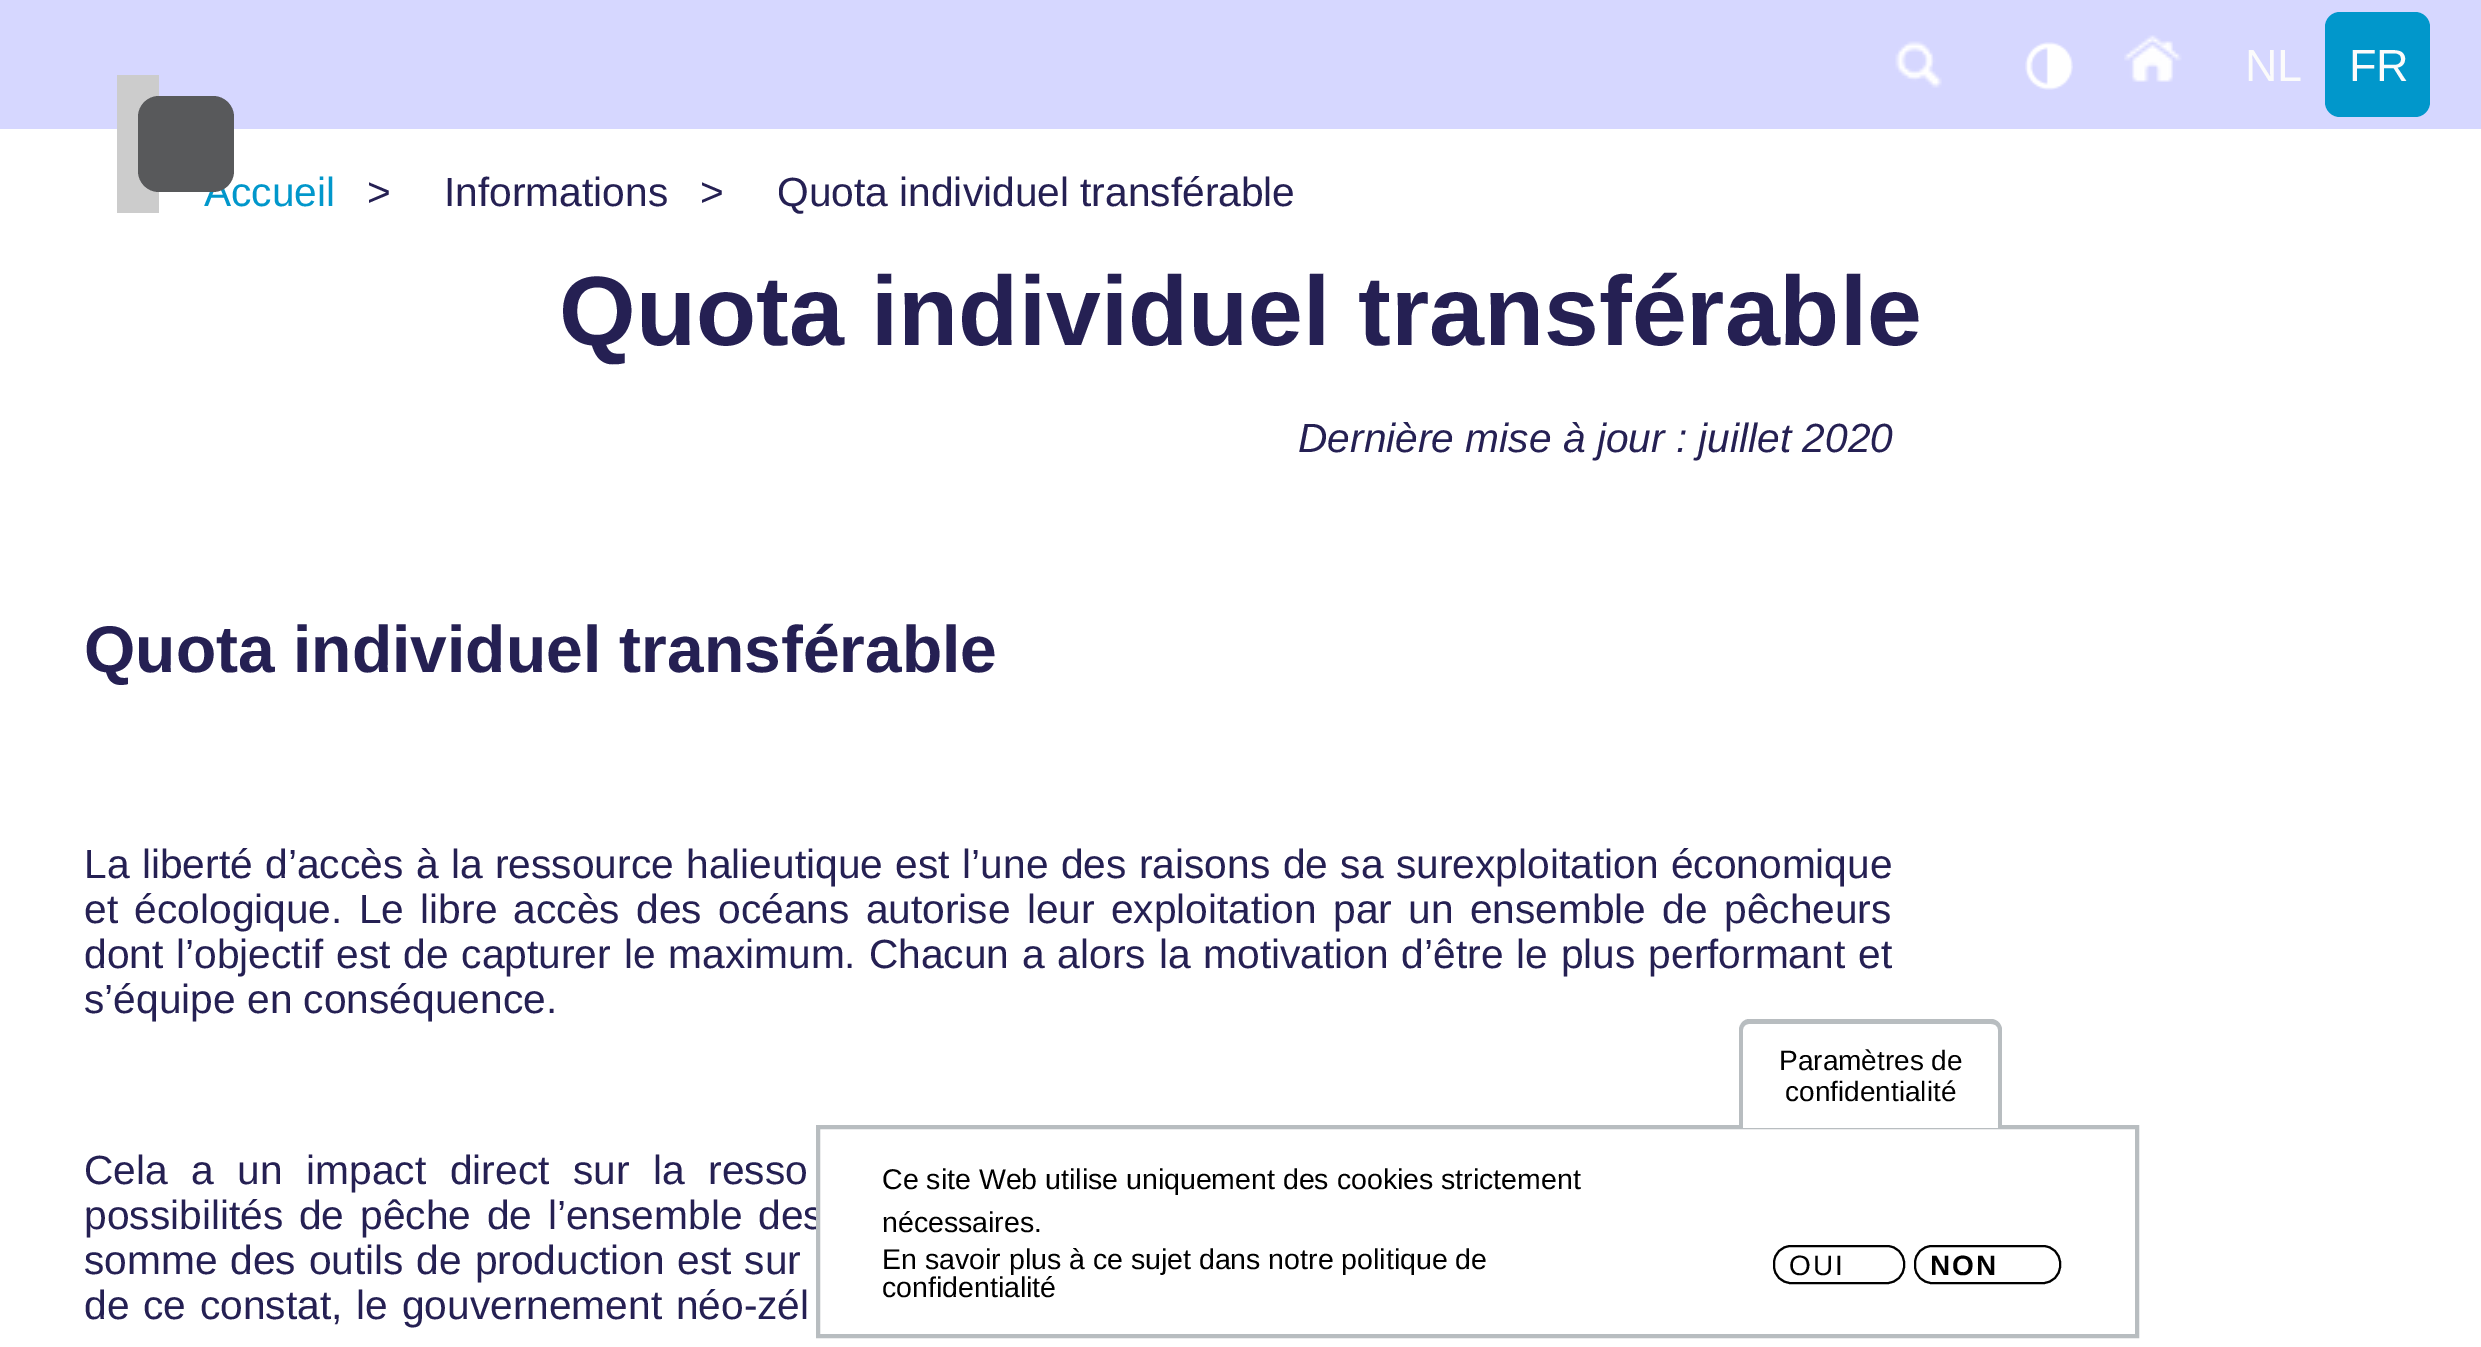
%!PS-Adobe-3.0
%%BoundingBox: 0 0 2481 1347
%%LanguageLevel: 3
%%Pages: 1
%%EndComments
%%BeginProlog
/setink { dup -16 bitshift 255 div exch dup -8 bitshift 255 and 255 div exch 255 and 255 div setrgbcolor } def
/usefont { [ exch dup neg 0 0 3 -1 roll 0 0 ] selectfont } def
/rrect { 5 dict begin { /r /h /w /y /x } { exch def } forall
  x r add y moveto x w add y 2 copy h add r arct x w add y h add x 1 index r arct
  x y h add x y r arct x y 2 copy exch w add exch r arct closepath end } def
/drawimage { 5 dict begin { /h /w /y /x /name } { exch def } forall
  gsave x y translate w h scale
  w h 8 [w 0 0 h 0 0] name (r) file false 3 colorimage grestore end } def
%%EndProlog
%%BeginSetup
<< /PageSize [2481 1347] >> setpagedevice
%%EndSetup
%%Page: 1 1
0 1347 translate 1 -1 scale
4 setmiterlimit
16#FFFFFF setink
0 0 2481 1347 rectfill
16#D6D7FF setink
0 0 2481 129 rectfill
(img1.raw) 1895 41 47 47 drawimage
(img2.raw) 2025 42 48 48 drawimage
(img3.raw) 2124 35 58 47 drawimage
/LiberationSans-Regular 45 usefont
16#FBFBFB setink
2245 81 moveto (NL) show
16#0197CB setink
2325 12 105 105 15 rrect fill
16#FBFBFB setink
2349 81 moveto (FR) show
16#CCCCCC setink
117 75 42 138 rectfill
/LiberationSans-Regular 40.7 usefont
16#0197CB setink
204 206 moveto (Accueil) show
16#58595B setink
138 96 96 96 21 rrect fill
16#252053 setink
[
    [(>) 367 206]
    [(Informations) 444 206]
    [(>) 700 206]
    [(Quota individuel transférable) 777 206]
] { aload pop moveto show } forall
/LiberationSans-Bold 98.5 usefont
559 345 moveto (Quota individuel transférable) show
/LiberationSans-Italic 40.7 usefont
1298 452 moveto (Dernière mise à jour : juillet 2020) show
/LiberationSans-Bold 66 usefont
84 672 moveto (Quota individuel transférable) show
/LiberationSans-Regular 40.7 usefont
84 878 moveto 1.2 0 32 (La liberté d’accès à la ressource halieutique est l’une des raisons de sa surexploitation économique) widthshow
84 923 moveto 5 0 32 (et écologique. Le libre accès des océans autorise leur exploitation par un ensemble de pêcheurs) widthshow
84 968 moveto 1.6 0 32 (dont l’objectif est de capturer le maximum. Chacun a alors la motivation d’être le plus performant et) widthshow
84 1013 moveto (s’équipe en conséquence.) show
84 1184 moveto 12.25 0 32 (Cela a un impact direct sur la resso) widthshow
84 1229 moveto 4.5 0 32 (possibilités de pêche de l’ensemble des) widthshow
84 1274 moveto 1.5 0 32 (somme des outils de production est sur) widthshow
84 1319 moveto 2.5 0 32 (de ce constat, le gouvernement néo-zél) widthshow
16#FFFFFF setink
820 1209 2 19 rectfill
16#B8BDC0 setink
4 setlinewidth
818 1127 1319 209 rectstroke
16#FFFFFF setink
1749 1023 moveto 1992 1023 lineto 1995.5 1023 1998 1025.5 1998 1029 curveto 1998 1128 lineto 1743 1128 lineto 1743 1029 lineto 1743 1025.5 1745.5 1023 1749 1023 curveto closepath fill
16#B8BDC0 setink
1749 1019 moveto 1991 1019 lineto 1997 1019 2002 1024 2002 1030 curveto 2002 1129 lineto 1739 1129 lineto 1739 1030 lineto 1739 1024 1744 1019 1749 1019 curveto closepath 1749 1024 moveto 1991 1024 lineto 1995 1024 1998 1026 1998 1030 curveto 1998 1129 lineto 1743 1129 lineto 1743 1030 lineto 1743 1026 1746 1024 1749 1024 curveto closepath eofill
/LiberationSans-Regular 28 usefont
16#000000 setink
1779 1070 moveto (Paramètres de) show
1785 1101 moveto (confidentialité) show
/LiberationSans-Regular 28.5 usefont
[
    [(Ce site Web utilise uniquement des cookies strictement) 882 1189]
    [(nécessaires.) 882 1232]
    [(En savoir plus à ce sujet dans notre politique de) 882 1269]
    [(confidentialité) 882 1297]
] { aload pop moveto show } forall
2 setlinewidth
1774 1246 130 37 17 rrect stroke
/LiberationSans-Regular 28 usefont
1789 1275 moveto 2 0 (OUI) ashow
1915 1246 145 37 17 rrect stroke
/LiberationSans-Bold 28 usefont
1930 1275 moveto 2 0 (NON) ashow
showpage
%%EOF
